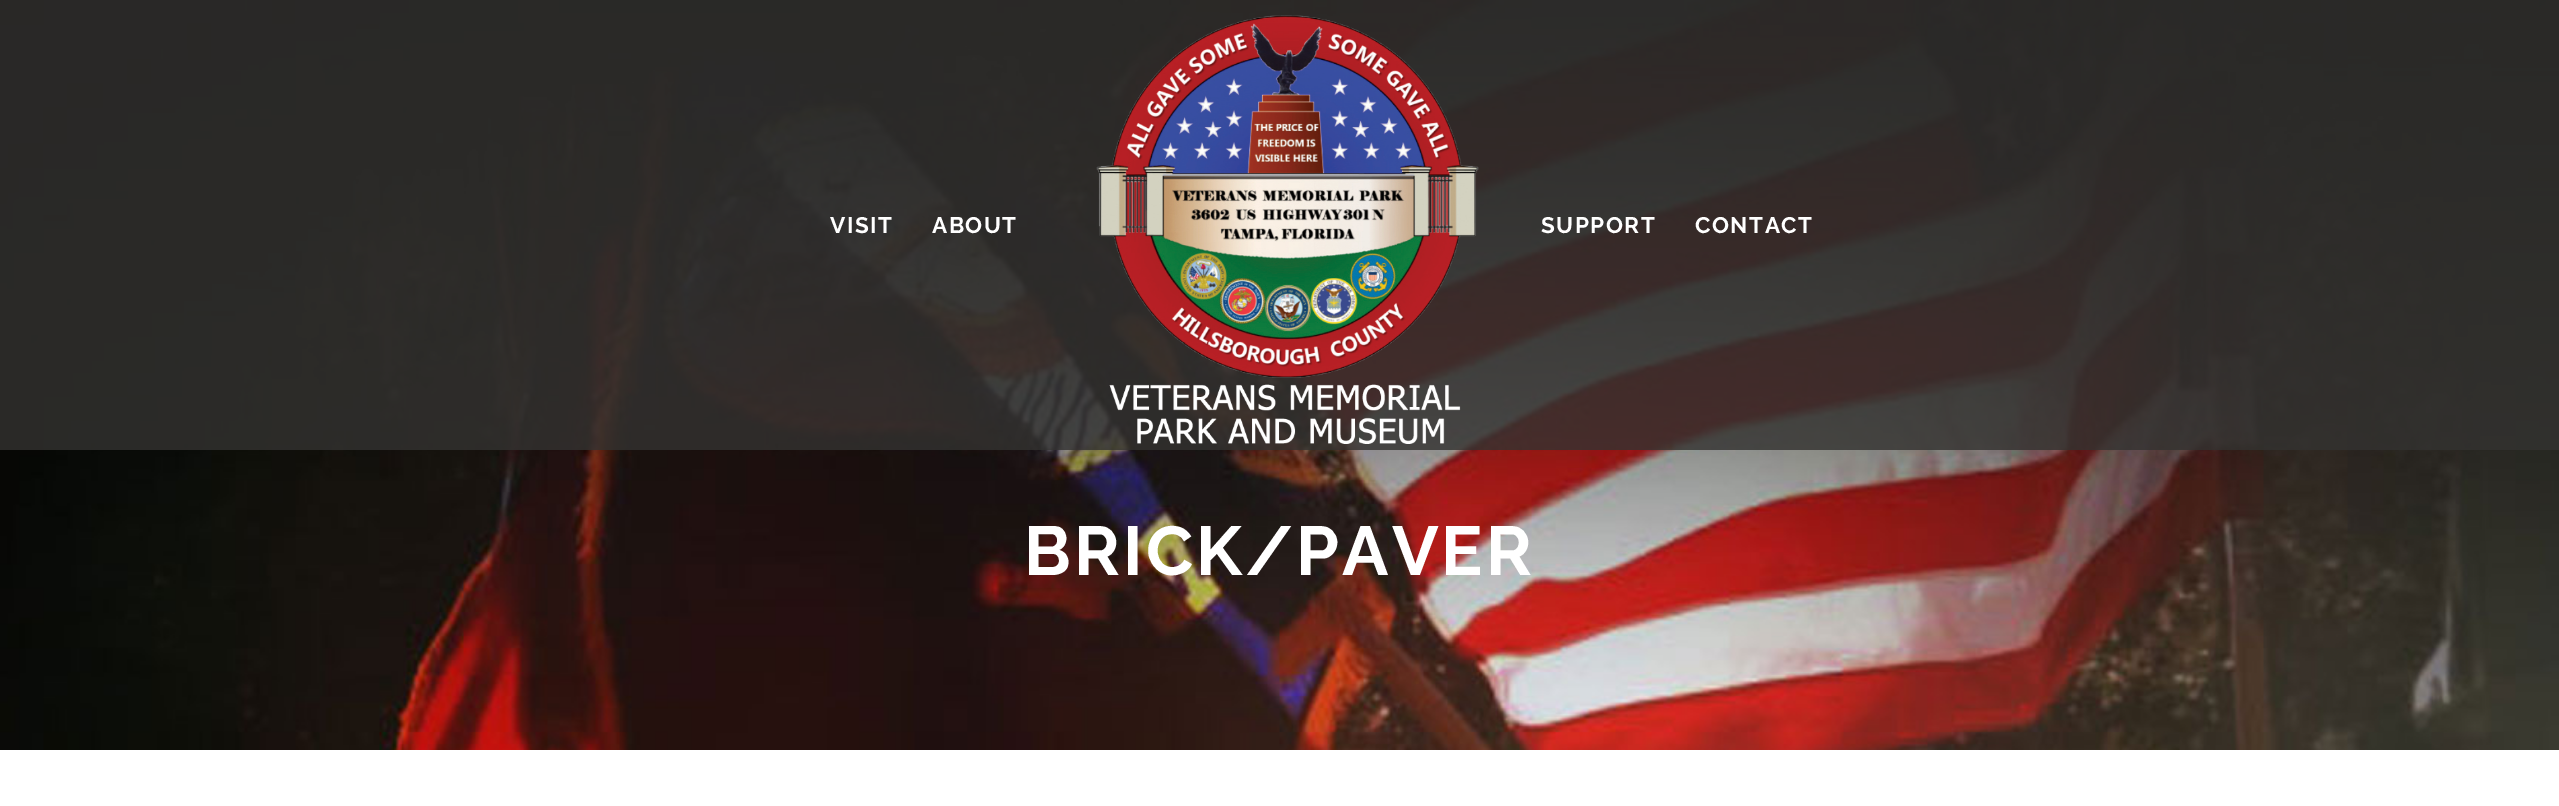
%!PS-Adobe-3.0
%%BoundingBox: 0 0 2559 806
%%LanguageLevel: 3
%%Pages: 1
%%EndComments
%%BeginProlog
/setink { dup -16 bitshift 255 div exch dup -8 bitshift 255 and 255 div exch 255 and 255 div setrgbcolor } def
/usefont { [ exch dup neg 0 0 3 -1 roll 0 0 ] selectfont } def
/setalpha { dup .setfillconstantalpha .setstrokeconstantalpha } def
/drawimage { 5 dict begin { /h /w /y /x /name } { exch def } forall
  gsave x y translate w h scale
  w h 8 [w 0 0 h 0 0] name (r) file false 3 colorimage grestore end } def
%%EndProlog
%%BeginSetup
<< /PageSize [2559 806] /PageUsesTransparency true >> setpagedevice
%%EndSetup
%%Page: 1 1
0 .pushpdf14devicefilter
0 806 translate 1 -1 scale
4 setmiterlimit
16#FFFFFF setink
0 0 2559 806 rectfill
(img2.raw) 0 0 2559 750 drawimage
0.8 setalpha
16#333230 setink
0 0 2559 450 rectfill
/Raleway-Bold 22.5 usefont
1 setalpha
16#FFFFFF setink
830 233 moveto 1.5 0 (VISIT) ashow
932 233 moveto 1.5 0 (ABOUT) ashow
(img1.raw) 1096 15 383 429 drawimage
1541 233 moveto 1.5 0 (SUPPORT) ashow
1695 233 moveto 1.5 0 (CONTACT) ashow
/Raleway-Bold 69 usefont
1024 575 moveto 3 0 (BRICK/PAVER) ashow
.poppdf14devicefilter showpage
%%EOF
